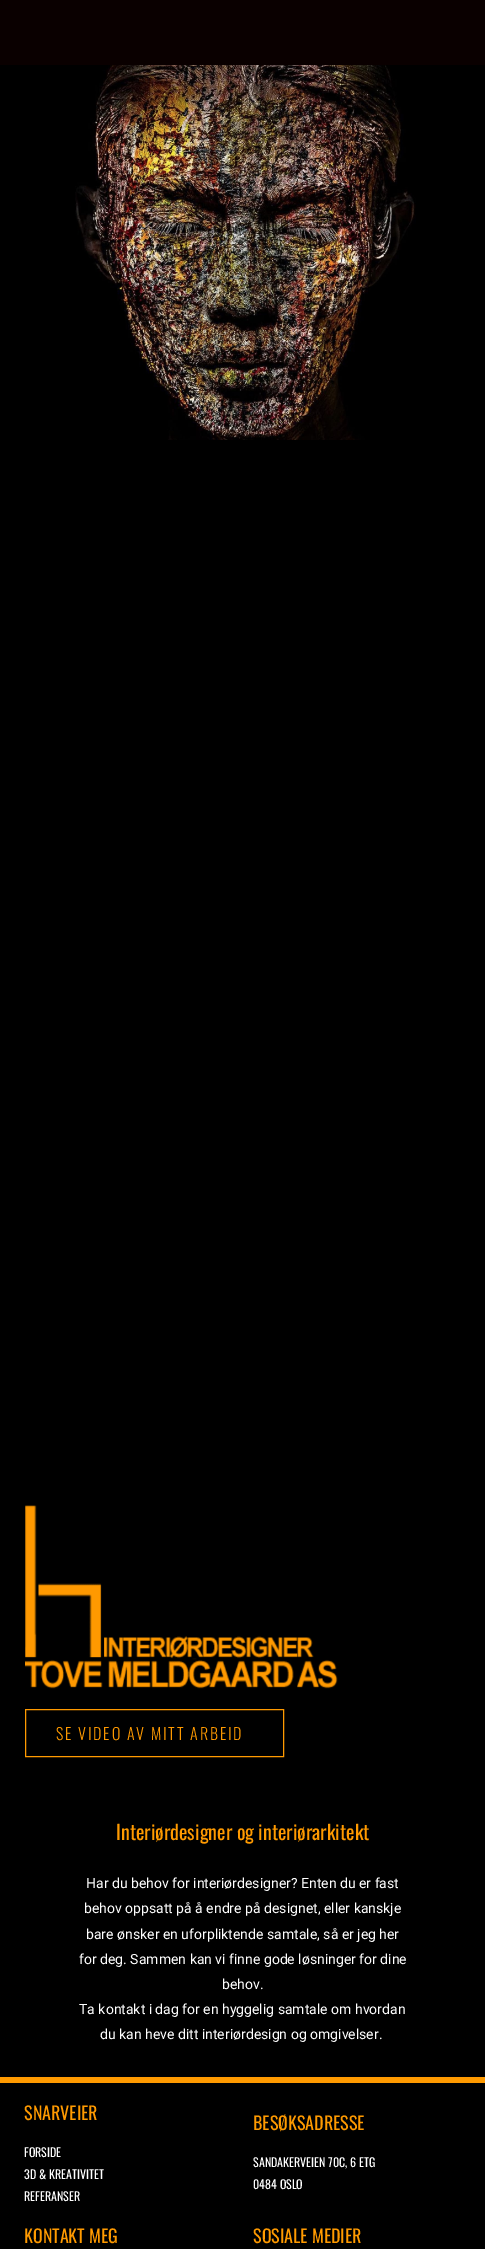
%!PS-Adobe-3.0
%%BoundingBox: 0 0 485 2249
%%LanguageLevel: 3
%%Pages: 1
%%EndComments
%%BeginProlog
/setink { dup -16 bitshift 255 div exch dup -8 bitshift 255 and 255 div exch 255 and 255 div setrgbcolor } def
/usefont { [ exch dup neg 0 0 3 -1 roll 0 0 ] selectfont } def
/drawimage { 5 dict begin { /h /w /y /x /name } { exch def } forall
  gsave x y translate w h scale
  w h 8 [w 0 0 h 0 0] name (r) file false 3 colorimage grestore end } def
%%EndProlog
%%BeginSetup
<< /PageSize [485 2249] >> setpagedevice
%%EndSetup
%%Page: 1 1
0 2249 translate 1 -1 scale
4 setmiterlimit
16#000000 setink
0 0 485 2249 rectfill
16#0A0000 setink
0 0 485 65 rectfill
(img1.raw) 75 65 341 375 drawimage
(img2.raw) 25 1505 313 184 drawimage
16#FF9A00 setink
25.5 1709.5 258 47 rectstroke
/Oswald-Light 16 usefont
56 1740 moveto 1.8 0 (SE VIDEO AV MITT ARBEID) ashow
/Oswald-Regular 20 usefont
116 1840 moveto (Interiørdesigner og interiørarkitekt) show
/Roboto-Regular 14 usefont
16#FFFFFF setink
[
    [(Har du behov for interiørdesigner? Enten du er fast) 86 1888]
    [(behov oppsatt på å endre på designet, eller kanskje) 84 1913]
    [(bare ønsker en uforpliktende samtale, så er jeg her) 86 1939]
    [(for deg. Sammen kan vi finne gode løsninger for dine) 79 1964]
    [(behov.) 222 1989]
    [(Ta kontakt i dag for en hyggelig samtale om hvordan) 79 2014]
    [(du kan heve ditt interiørdesign og omgivelser.) 100 2039]
] { aload pop moveto show } forall
16#FF9A00 setink
0 2077 485 6 rectfill
/Oswald-Regular 18 usefont
24 2120 moveto (SNARVEIER) show
/Oswald-Regular 12 usefont
16#FFFFFF setink
[
    [(FORSIDE) 24 2157]
    [(3D & KREATIVITET) 24 2179]
    [(REFERANSER) 24 2201]
] { aload pop moveto show } forall
/Oswald-Regular 18 usefont
16#FF9A00 setink
253 2130 moveto (BESØKSADRESSE) show
/Oswald-Regular 12 usefont
16#FFFFFF setink
253 2167 moveto (SANDAKERVEIEN 70C, 6 ETG) show
253 2189 moveto (0484 OSLO) show
/Oswald-Regular 18 usefont
16#FF9A00 setink
24 2243 moveto (KONTAKT MEG) show
253 2243 moveto (SOSIALE MEDIER) show
showpage
%%EOF
